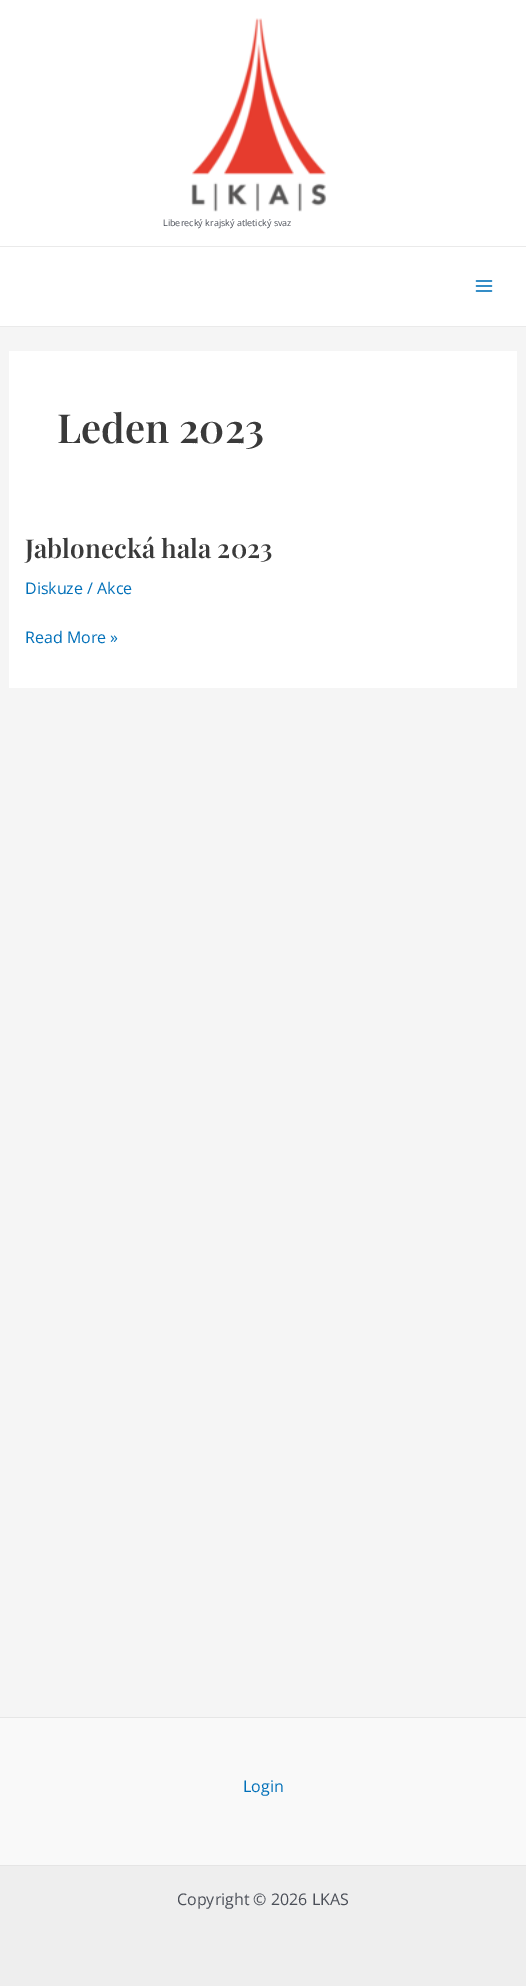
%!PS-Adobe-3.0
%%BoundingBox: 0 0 526 1986
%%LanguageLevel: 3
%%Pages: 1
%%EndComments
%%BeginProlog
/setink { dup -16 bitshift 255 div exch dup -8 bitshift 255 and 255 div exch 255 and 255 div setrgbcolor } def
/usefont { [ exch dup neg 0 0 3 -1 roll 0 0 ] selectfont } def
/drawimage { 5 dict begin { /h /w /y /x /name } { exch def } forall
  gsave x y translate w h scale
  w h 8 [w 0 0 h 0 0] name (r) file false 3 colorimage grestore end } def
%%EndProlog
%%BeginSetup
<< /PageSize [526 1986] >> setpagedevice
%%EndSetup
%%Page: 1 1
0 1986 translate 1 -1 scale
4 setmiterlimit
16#F5F5F5 setink
0 0 526 1986 rectfill
16#FFFFFF setink
0 0 526 246 rectfill
16#EAEAEA setink
0 246 526 1 rectfill
(img1.raw) 191 18 136 194 drawimage
/OpenSans-Regular 9 usefont
16#4B4F58 setink
163 226 moveto (Liberecký krajský atletický svaz) show
16#FFFFFF setink
0 247 526 79 rectfill
16#EAEAEA setink
0 326 526 1 rectfill
(img2.raw) 475 280 18 12 drawimage
16#FFFFFF setink
9 351 508 337 rectfill
/PlayfairDisplay-SemiBold 40 usefont
16#3A3A3A setink
57 443 moveto (Leden 2023) show
/PlayfairDisplay-SemiBold 26 usefont
25 558 moveto (Jablonecká hala 2023) show
/OpenSans-Regular 16 usefont
16#0170B9 setink
25 594 moveto (Diskuze / Akce) show
25 643 moveto (Read More ») show
16#F9F9F9 setink
0 1718 526 147 rectfill
16#E6E6E6 setink
0 1717 526 1 rectfill
16#0170B9 setink
243 1792 moveto (Login) show
16#EEEEEE setink
0 1866 526 120 rectfill
16#E5E5E5 setink
0 1865 526 1 rectfill
16#4B4F58 setink
177 1905 moveto (Copyright © 2026 LKAS) show
showpage
%%EOF
